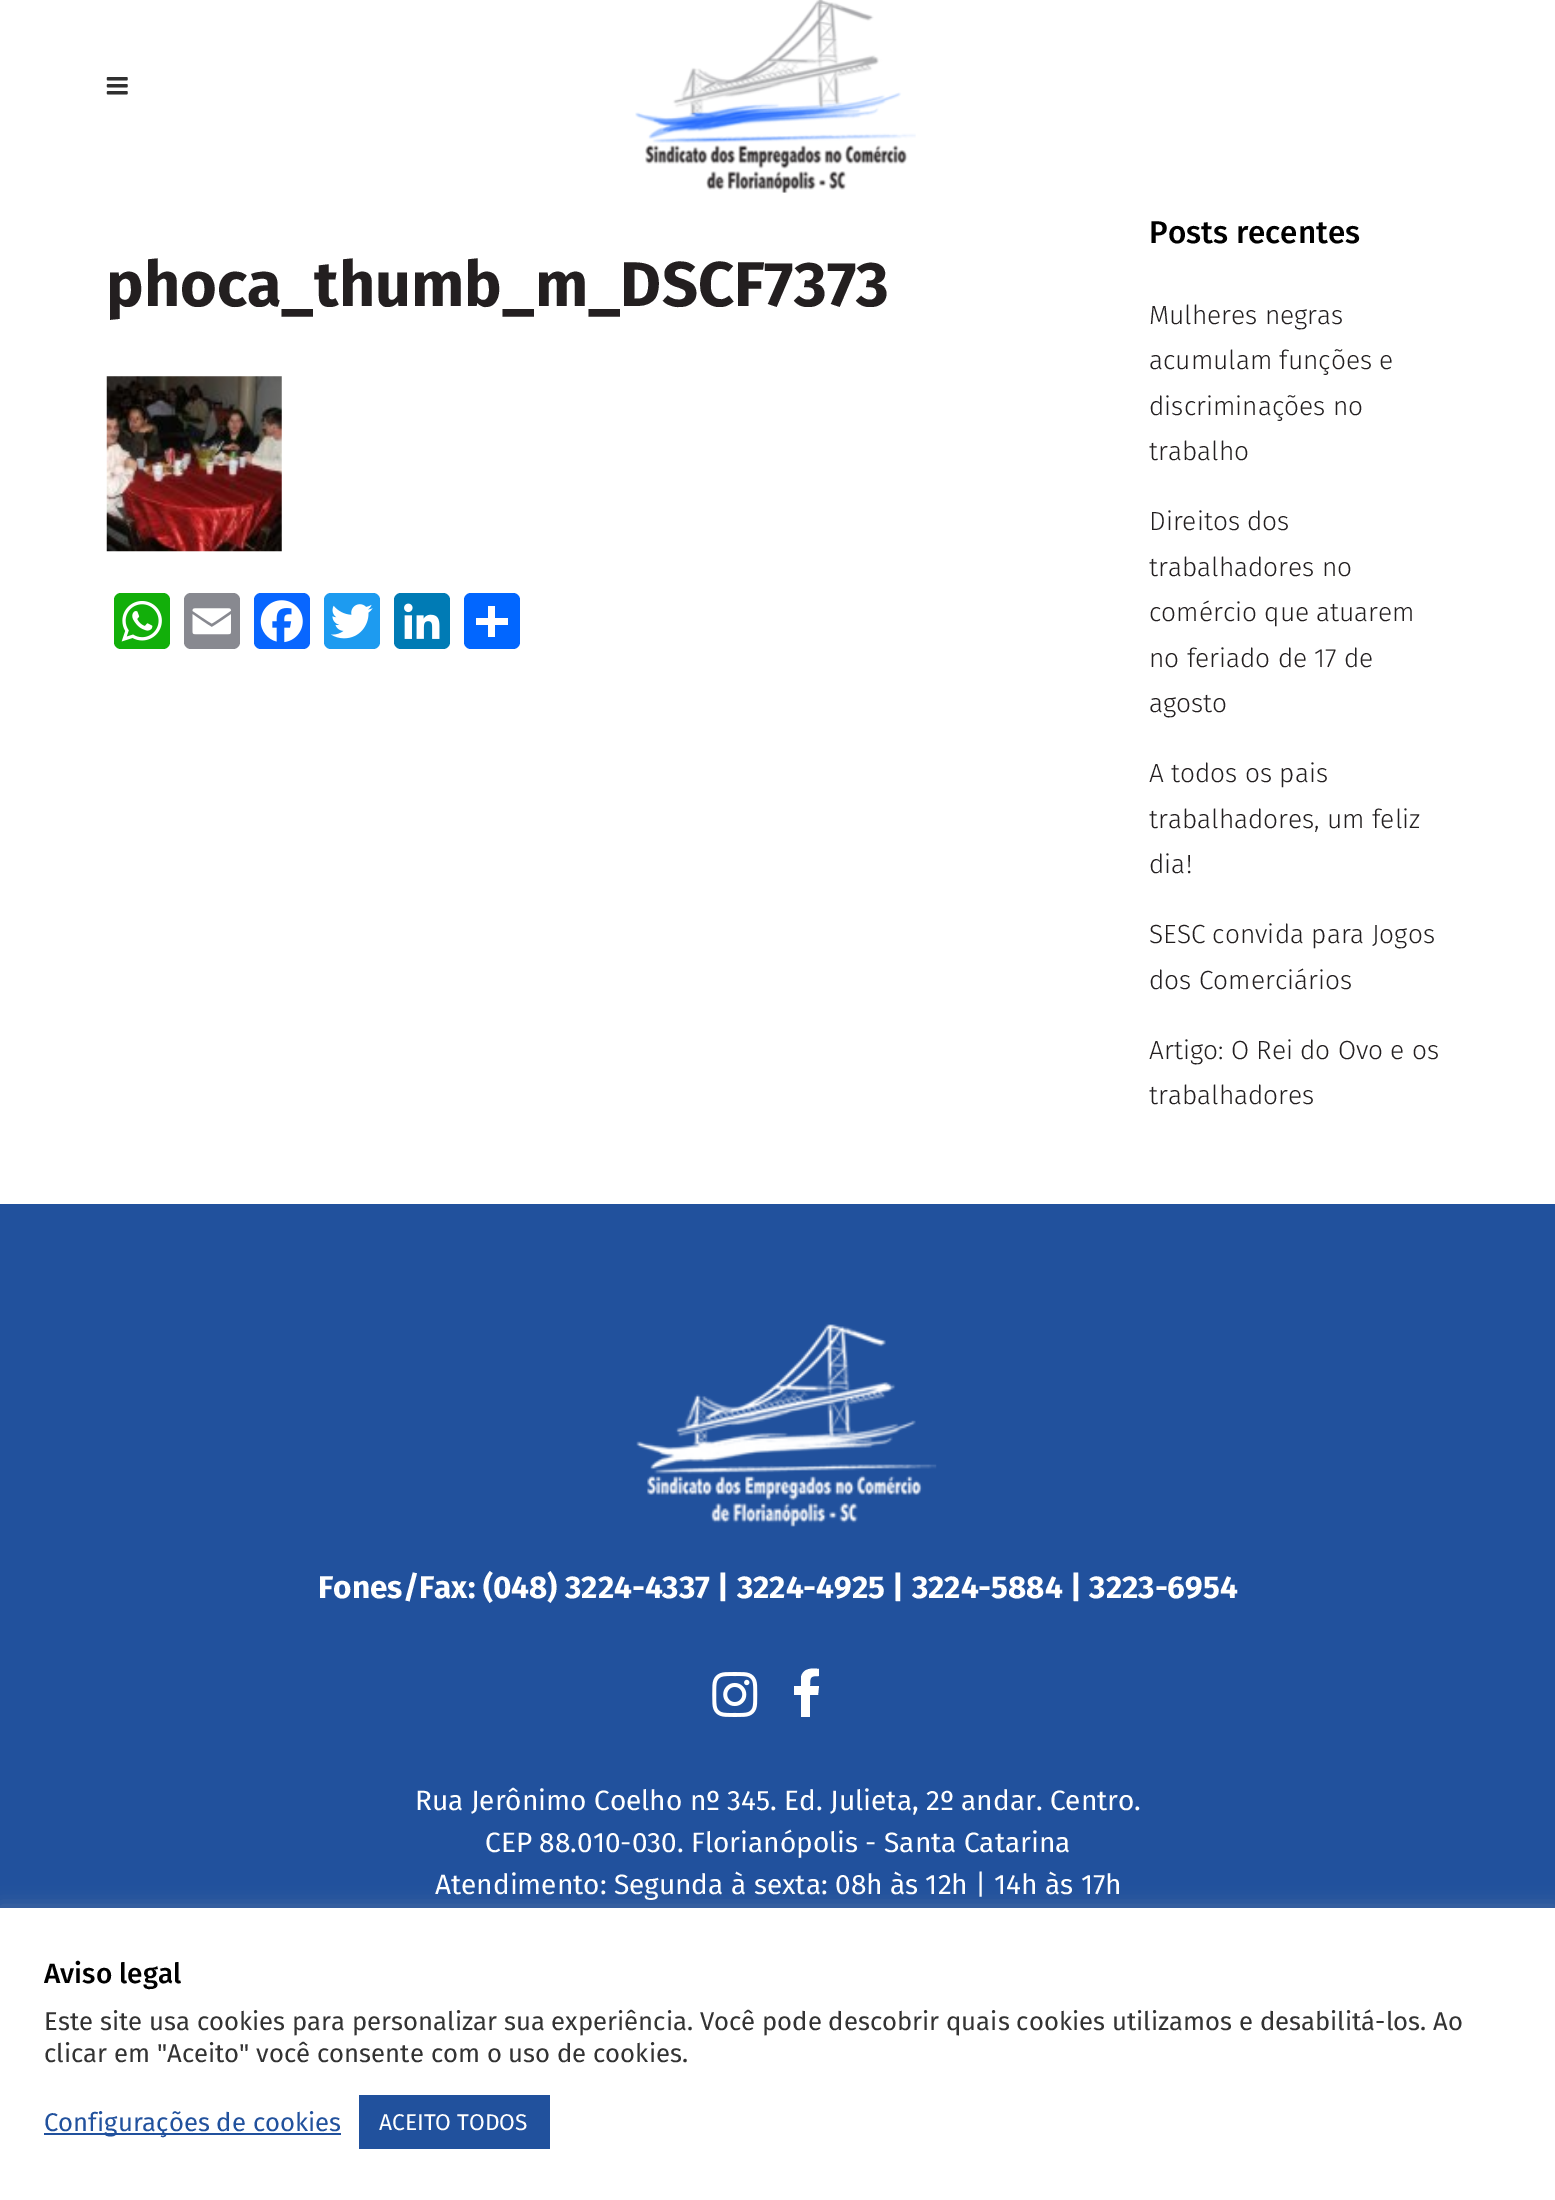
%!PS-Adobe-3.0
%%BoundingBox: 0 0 1555 2200
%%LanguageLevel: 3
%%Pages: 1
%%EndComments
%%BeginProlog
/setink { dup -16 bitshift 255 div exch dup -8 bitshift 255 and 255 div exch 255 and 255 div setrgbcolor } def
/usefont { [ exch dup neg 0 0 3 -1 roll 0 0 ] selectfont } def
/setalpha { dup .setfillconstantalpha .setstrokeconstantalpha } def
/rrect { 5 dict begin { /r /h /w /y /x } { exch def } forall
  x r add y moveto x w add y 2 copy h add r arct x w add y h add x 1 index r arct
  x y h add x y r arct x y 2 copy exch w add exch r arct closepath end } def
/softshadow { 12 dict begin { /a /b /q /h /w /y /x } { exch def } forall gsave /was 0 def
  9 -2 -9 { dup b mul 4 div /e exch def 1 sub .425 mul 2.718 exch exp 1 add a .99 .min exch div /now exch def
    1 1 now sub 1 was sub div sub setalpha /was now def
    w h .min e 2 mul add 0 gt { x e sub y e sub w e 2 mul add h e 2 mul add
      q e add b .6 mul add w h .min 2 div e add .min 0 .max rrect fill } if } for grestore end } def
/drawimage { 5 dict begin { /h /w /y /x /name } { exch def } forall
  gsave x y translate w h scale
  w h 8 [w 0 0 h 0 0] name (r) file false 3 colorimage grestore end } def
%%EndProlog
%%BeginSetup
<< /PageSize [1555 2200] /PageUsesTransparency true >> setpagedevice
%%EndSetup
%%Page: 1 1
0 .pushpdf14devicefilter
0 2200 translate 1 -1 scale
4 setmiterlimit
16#FFFFFF setink
0 0 1555 2200 rectfill
(img1.raw) 106 77 22 18 drawimage
(img2.raw) 635 0 281 193 drawimage
/FiraSans-Bold 63 usefont
16#231F20 setink
106 306 moveto (phoca_thumb_m_DSCF7373) show
(img3.raw) 106 376 176 176 drawimage
16#12AF0A setink
114 593 56 56 7 rrect fill
(img4.raw) 121 601 41 41 drawimage
16#888990 setink
184 593 56 56 7 rrect fill
(img5.raw) 192 608 39 27 drawimage
16#0866FF setink
254 593 56 56 7 rrect fill
(img6.raw) 260 600 43 43 drawimage
16#1D9BF0 setink
324 593 56 56 7 rrect fill
(img7.raw) 331 604 42 35 drawimage
16#007BB5 setink
394 593 56 56 7 rrect fill
(img8.raw) 404 603 36 36 drawimage
16#0166FF setink
464 593 56 56 7 rrect fill
16#FFFFFF setink
488 606 7 31 rectfill
476 618 32 7 rectfill
/FiraSans-Medium 31.5 usefont
16#000000 setink
1149 243 moveto (Posts recentes) show
/FiraSans-Light 26.25 usefont
16#231F20 setink
[
    [(Mulheres negras) 1149 324]
    [(acumulam funções e) 1149 369]
    [(discriminações no) 1149 415]
    [(trabalho) 1149 460]
    [(Direitos dos) 1149 530]
    [(trabalhadores no) 1149 576]
    [(comércio que atuarem) 1149 621]
    [(no feriado de 17 de) 1149 667]
    [(agosto) 1149 712]
    [(A todos os pais) 1149 782]
    [(trabalhadores, um feliz) 1149 828]
    [(dia!) 1149 873]
    [(SESC convida para Jogos) 1149 943]
    [(dos Comerciários) 1149 989]
    [(Artigo: O Rei do Ovo e os) 1149 1059]
    [(trabalhadores) 1149 1104]
] { aload pop moveto show } forall
16#21519D setink
0 1204 1555 704 rectfill
(img9.raw) 636 1324 301 203 drawimage
/FiraSans-Bold 31.5 usefont
16#FFFFFF setink
318 1598 moveto (Fones/Fax: \(048\) 3224-4337 | 3224-4925 | 3224-5884 | 3223-6954) show
(img10.raw) 712 1672 46 45 drawimage
819 1669 moveto 819 1676 lineto 810 1676 810 1677 810 1686 curveto 819 1686 lineto 818 1695 lineto 810 1695 lineto 810 1717 lineto 801 1717 lineto 801 1695 lineto 794 1695 lineto 794 1686 lineto 801 1686 lineto 801 1677 lineto 803 1668 812 1668 819 1669 curveto closepath fill
/FiraSans-Regular 28 usefont
[
    [(Rua Jerônimo Coelho nº 345. Ed. Julieta, 2º andar. Centro.) 415 1810]
    [(CEP 88.010-030. Florianópolis - Santa Catarina) 485 1852]
    [(Atendimento: Segunda à sexta: 08h às 12h | 14h às 17h) 435 1894]
] { aload pop moveto show } forall
16#ACABAB setink
0 1906 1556 294 0 9 0.3 softshadow
16#FFFFFF setink
0 1908 1555 292 rectfill
/FiraSans-Medium 28 usefont
16#000000 setink
44 1983 moveto (Aviso legal) show
/FiraSans-Regular 25.67 usefont
16#333333 setink
44 2030 moveto (Este site usa cookies para personalizar sua experiência. Você pode descobrir quais cookies utilizamos e desabilitá-los. Ao) show
44 2062 moveto (clicar em "Aceito" você consente com o uso de cookies.) show
16#21519D setink
44 2133 297 2 rectfill
44 2131 moveto (Configurações de cookies) show
359 2095 191 54 rectfill
/FiraSans-Regular 22.75 usefont
16#FFFFFF setink
379 2130 moveto (ACEITO TODOS) show
.poppdf14devicefilter showpage
%%EOF
